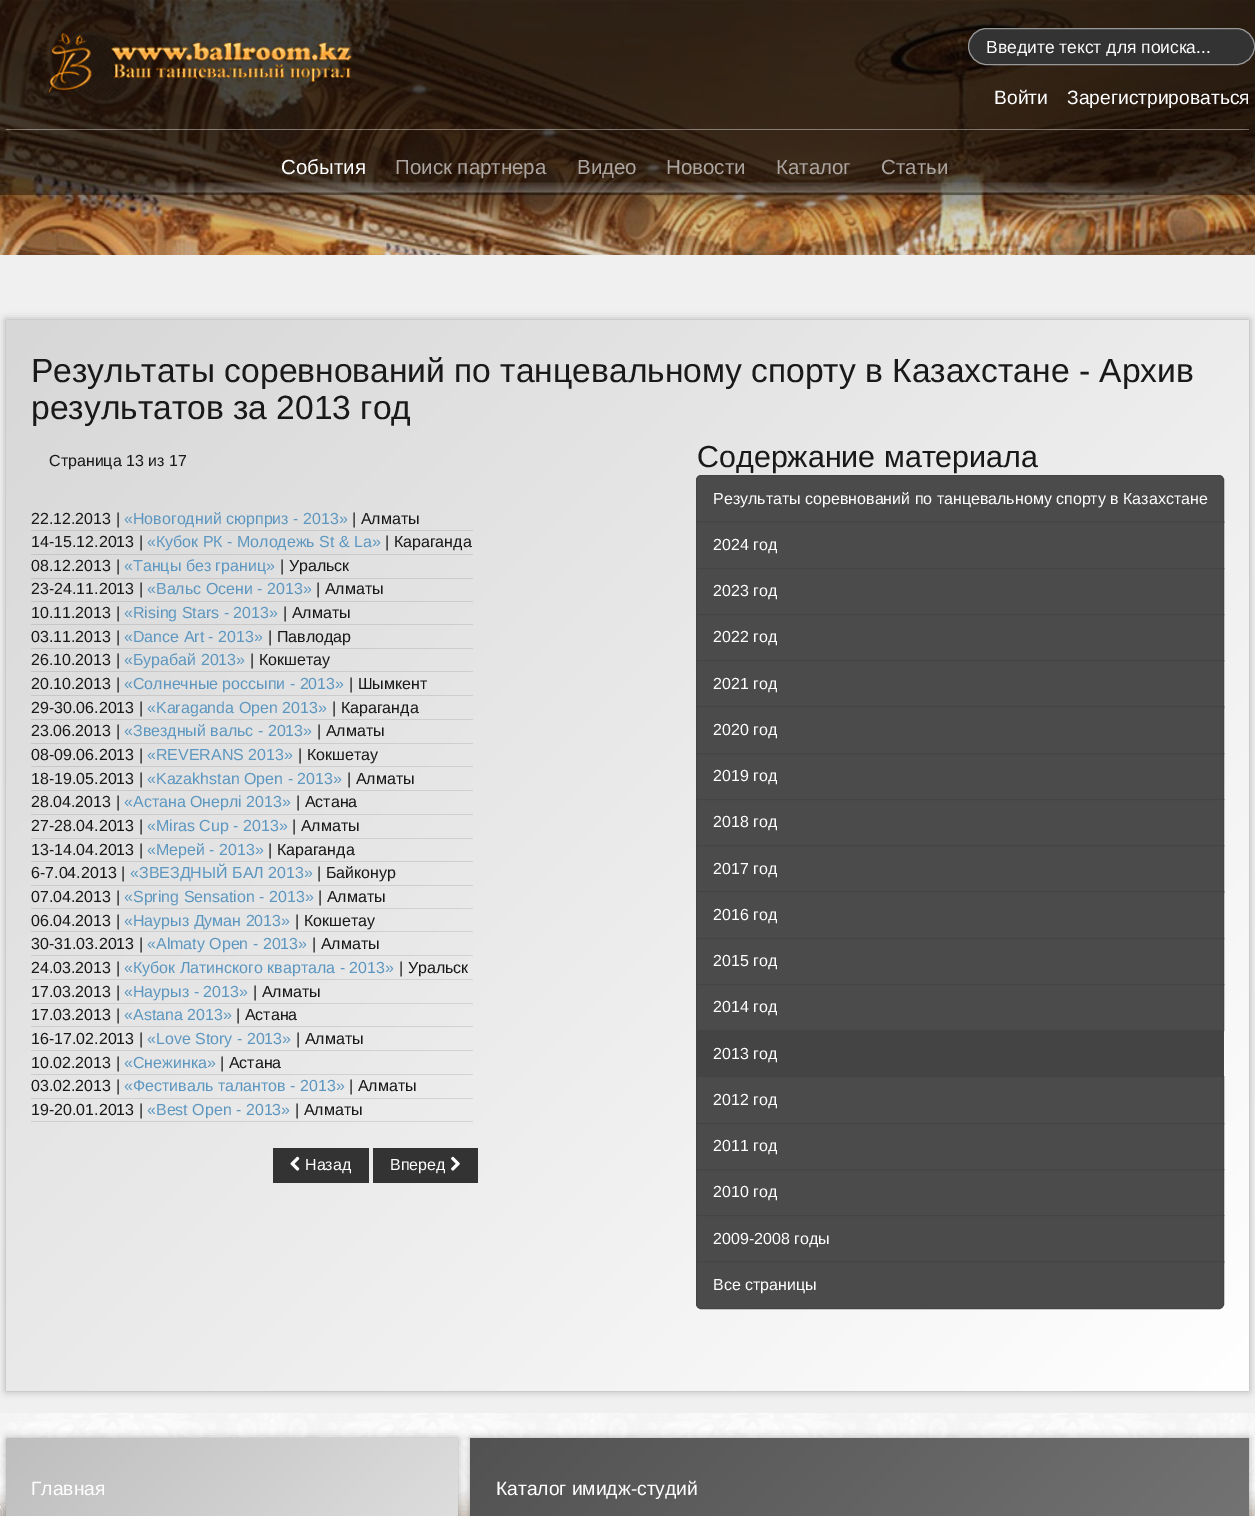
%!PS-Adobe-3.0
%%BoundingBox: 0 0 1255 1516
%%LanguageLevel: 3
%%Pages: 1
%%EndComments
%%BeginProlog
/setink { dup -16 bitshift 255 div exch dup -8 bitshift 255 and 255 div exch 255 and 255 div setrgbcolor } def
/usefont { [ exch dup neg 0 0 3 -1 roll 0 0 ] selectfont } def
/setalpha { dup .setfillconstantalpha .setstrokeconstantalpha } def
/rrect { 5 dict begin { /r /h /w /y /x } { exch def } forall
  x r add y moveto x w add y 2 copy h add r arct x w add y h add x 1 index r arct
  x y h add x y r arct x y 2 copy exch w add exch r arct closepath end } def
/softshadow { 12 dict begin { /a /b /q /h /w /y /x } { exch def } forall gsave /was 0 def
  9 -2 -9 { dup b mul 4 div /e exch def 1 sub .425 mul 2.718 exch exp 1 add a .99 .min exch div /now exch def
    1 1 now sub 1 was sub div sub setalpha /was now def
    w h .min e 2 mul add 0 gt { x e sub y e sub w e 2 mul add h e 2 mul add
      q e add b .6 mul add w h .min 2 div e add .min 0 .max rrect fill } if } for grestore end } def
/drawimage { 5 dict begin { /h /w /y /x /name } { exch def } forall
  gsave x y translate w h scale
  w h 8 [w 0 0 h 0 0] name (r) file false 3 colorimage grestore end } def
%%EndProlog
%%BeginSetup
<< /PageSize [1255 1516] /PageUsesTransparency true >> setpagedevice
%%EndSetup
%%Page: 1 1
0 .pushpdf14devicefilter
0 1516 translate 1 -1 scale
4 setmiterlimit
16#FFFFFF setink
0 0 1255 1516 rectfill
(img1.raw) 0 1413 1255 103 drawimage
(img2.raw) 0 0 1255 255 drawimage
(img3.raw) 0 1491 1255 25 drawimage
(img4.raw) 0 0 1255 255 drawimage
(img5.raw) 48 32 304 62 drawimage
16#333333 setink
968.5 28.5 286 36 18 rrect gsave fill grestore
16#999999 setink
stroke
gsave
986 36 245 20 rectclip
/LiberationSans-Regular 17.5 usefont
16#FFFFFF setink
986 53 moveto (Введите текст для поиска...) show
grestore
/LiberationSans-Regular 19.25 usefont
16#FFFFFF setink
994 104 moveto (Войти) show
1067 104 moveto (Зарегистрироваться) show
0.4 setalpha
6 129 1243 1 rectfill
/LiberationSans-Regular 20.5 usefont
1 setalpha
281 174 moveto (События) show
16#ACA5A0 setink
[
    [(Поиск партнера) 395 174]
    [(Видео) 577 174]
    [(Новости) 666 174]
    [(Каталог) 776 174]
    [(Статьи) 881 174]
] { aload pop moveto show } forall
16#F0F0F0 setink
0 255 1255 1158 rectfill
16#000000 setink
6 320 1243 1071 0 4 0.3 softshadow
gsave 6 320 moveto 1249 320 lineto 1249 1391 lineto 6 1391 lineto closepath clip newpath
<< /ShadingType 2 /ColorSpace /DeviceRGB /Coords [1206 1434 49 277] /Extend [true true] /Function << /FunctionType 2 /Domain [0 1] /C0 [1 1 1] /C1 [0.843 0.843 0.843] /N 1 >> >> shfill grestore
/LiberationSans-Regular 33.6 usefont
16#191919 setink
31 382 moveto (Результаты соревнований по танцевальному спорту в Казахстане - Архив) show
31 419 moveto (результатов за 2013 год) show
/LiberationSans-Regular 16 usefont
49 466 moveto (Страница 13 из 17) show
0.1 setalpha
16#000000 setink
31 530 442 1 rectfill
1 setalpha
16#191919 setink
31 524 moveto (22.12.2013 |) show
16#5D97C0 setink
124 524 moveto («Новогодний сюрприз - 2013») show
16#191919 setink
352 524 moveto (| Алматы) show
0.1 setalpha
16#000000 setink
31 554 442 1 rectfill
1 setalpha
16#191919 setink
31 547 moveto (14-15.12.2013 |) show
16#5D97C0 setink
147 547 moveto («Кубок РК - Молодежь St & La») show
16#191919 setink
385 547 moveto (| Караганда) show
0.1 setalpha
16#000000 setink
31 578 442 1 rectfill
1 setalpha
16#191919 setink
31 571 moveto (08.12.2013 |) show
16#5D97C0 setink
124 571 moveto («Танцы без границ») show
16#191919 setink
280 571 moveto (| Уральск) show
0.1 setalpha
16#000000 setink
31 601 442 1 rectfill
1 setalpha
16#191919 setink
31 594 moveto (23-24.11.2013 |) show
16#5D97C0 setink
147 594 moveto («Вальс Осени - 2013») show
16#191919 setink
316 594 moveto (| Алматы) show
0.1 setalpha
16#000000 setink
31 624 442 1 rectfill
1 setalpha
16#191919 setink
31 618 moveto (10.11.2013 |) show
16#5D97C0 setink
124 618 moveto («Rising Stars - 2013») show
16#191919 setink
283 618 moveto (| Алматы) show
0.1 setalpha
16#000000 setink
31 648 442 1 rectfill
1 setalpha
16#191919 setink
31 642 moveto (03.11.2013 |) show
16#5D97C0 setink
124 642 moveto («Dance Art - 2013») show
16#191919 setink
268 642 moveto (| Павлодар) show
0.1 setalpha
16#000000 setink
31 671 442 1 rectfill
1 setalpha
16#191919 setink
31 665 moveto (26.10.2013 |) show
16#5D97C0 setink
124 665 moveto («Бурабай 2013») show
16#191919 setink
250 665 moveto (| Кокшетау) show
0.1 setalpha
16#000000 setink
31 695 442 1 rectfill
1 setalpha
16#191919 setink
31 689 moveto (20.10.2013 |) show
16#5D97C0 setink
124 689 moveto («Солнечные россыпи - 2013») show
16#191919 setink
349 689 moveto (| Шымкент) show
0.1 setalpha
16#000000 setink
31 719 442 1 rectfill
1 setalpha
16#191919 setink
31 713 moveto (29-30.06.2013 |) show
16#5D97C0 setink
147 713 moveto («Karaganda Open 2013») show
16#191919 setink
332 713 moveto (| Караганда) show
0.1 setalpha
16#000000 setink
31 743 442 1 rectfill
1 setalpha
16#191919 setink
31 736 moveto (23.06.2013 |) show
16#5D97C0 setink
124 736 moveto («Звездный вальс - 2013») show
16#191919 setink
317 736 moveto (| Алматы) show
0.1 setalpha
16#000000 setink
31 766 442 1 rectfill
1 setalpha
16#191919 setink
31 760 moveto (08-09.06.2013 |) show
16#5D97C0 setink
147 760 moveto («REVERANS 2013») show
16#191919 setink
298 760 moveto (| Кокшетау) show
0.1 setalpha
16#000000 setink
31 790 442 1 rectfill
1 setalpha
16#191919 setink
31 784 moveto (18-19.05.2013 |) show
16#5D97C0 setink
147 784 moveto («Kazakhstan Open - 2013») show
16#191919 setink
347 784 moveto (| Алматы) show
0.1 setalpha
16#000000 setink
31 814 442 1 rectfill
1 setalpha
16#191919 setink
31 807 moveto (28.04.2013 |) show
16#5D97C0 setink
124 807 moveto («Астана Онерлi 2013») show
16#191919 setink
296 807 moveto (| Астана) show
0.1 setalpha
16#000000 setink
31 838 442 1 rectfill
1 setalpha
16#191919 setink
31 831 moveto (27-28.04.2013 |) show
16#5D97C0 setink
147 831 moveto («Miras Cup - 2013») show
16#191919 setink
292 831 moveto (| Алматы) show
0.1 setalpha
16#000000 setink
31 861 442 1 rectfill
1 setalpha
16#191919 setink
31 855 moveto (13-14.04.2013 |) show
16#5D97C0 setink
147 855 moveto («Мерей - 2013») show
16#191919 setink
268 855 moveto (| Караганда) show
0.1 setalpha
16#000000 setink
31 885 442 1 rectfill
1 setalpha
16#191919 setink
31 878 moveto (6-7.04.2013 |) show
16#5D97C0 setink
130 878 moveto («ЗВЕЗДНЫЙ БАЛ 2013») show
16#191919 setink
317 878 moveto (| Байконур) show
0.1 setalpha
16#000000 setink
31 908 442 1 rectfill
1 setalpha
16#191919 setink
31 902 moveto (07.04.2013 |) show
16#5D97C0 setink
124 902 moveto («Spring Sensation - 2013») show
16#191919 setink
318 902 moveto (| Алматы) show
0.1 setalpha
16#000000 setink
31 931 442 1 rectfill
1 setalpha
16#191919 setink
31 926 moveto (06.04.2013 |) show
16#5D97C0 setink
124 926 moveto («Наурыз Думан 2013») show
16#191919 setink
295 926 moveto (| Кокшетау) show
0.1 setalpha
16#000000 setink
31 955 442 1 rectfill
1 setalpha
16#191919 setink
31 949 moveto (30-31.03.2013 |) show
16#5D97C0 setink
147 949 moveto («Almaty Open - 2013») show
16#191919 setink
312 949 moveto (| Алматы) show
0.1 setalpha
16#000000 setink
31 979 442 1 rectfill
1 setalpha
16#191919 setink
31 973 moveto (24.03.2013 |) show
16#5D97C0 setink
124 973 moveto («Кубок Латинского квартала - 2013») show
16#191919 setink
399 973 moveto (| Уральск) show
0.1 setalpha
16#000000 setink
31 1003 442 1 rectfill
1 setalpha
16#191919 setink
31 997 moveto (17.03.2013 |) show
16#5D97C0 setink
124 997 moveto («Наурыз - 2013») show
16#191919 setink
253 997 moveto (| Алматы) show
0.1 setalpha
16#000000 setink
31 1026 442 1 rectfill
1 setalpha
16#191919 setink
31 1020 moveto (17.03.2013 |) show
16#5D97C0 setink
124 1020 moveto («Astana 2013») show
16#191919 setink
236 1020 moveto (| Астана) show
0.1 setalpha
16#000000 setink
31 1050 442 1 rectfill
1 setalpha
16#191919 setink
31 1044 moveto (16-17.02.2013 |) show
16#5D97C0 setink
147 1044 moveto («Love Story - 2013») show
16#191919 setink
296 1044 moveto (| Алматы) show
0.1 setalpha
16#000000 setink
31 1074 442 1 rectfill
1 setalpha
16#191919 setink
31 1068 moveto (10.02.2013 |) show
16#5D97C0 setink
124 1068 moveto («Снежинка») show
16#191919 setink
220 1068 moveto (| Астана) show
0.1 setalpha
16#000000 setink
31 1098 442 1 rectfill
1 setalpha
16#191919 setink
31 1091 moveto (03.02.2013 |) show
16#5D97C0 setink
124 1091 moveto («Фестиваль талантов - 2013») show
16#191919 setink
349 1091 moveto (| Алматы) show
0.1 setalpha
16#000000 setink
31 1121 442 1 rectfill
1 setalpha
16#191919 setink
31 1115 moveto (19-20.01.2013 |) show
16#5D97C0 setink
147 1115 moveto («Best Open - 2013») show
16#191919 setink
295 1115 moveto (| Алматы) show
16#333333 setink
273 1148 96 35 rectfill
(img6.raw) 290 1156 10 15 drawimage
16#FFFFFF setink
305 1170 moveto (Назад) show
16#333333 setink
373 1148 105 35 rectfill
16#FFFFFF setink
390 1170 moveto (Вперед) show
(img7.raw) 451 1156 9 15 drawimage
/LiberationSans-Regular 30.4 usefont
16#191919 setink
697 467 moveto (Содержание материала) show
16#4B4B4B setink
701 475.5 moveto 1219 475.5 lineto 1221.5 475.5 1223.5 477.5 1223.5 480 curveto 1223.5 522.5 lineto 696.5 522.5 lineto 696.5 480 lineto 696.5 477.5 698.5 475.5 701 475.5 curveto closepath gsave fill grestore
16#444444 setink
stroke
/LiberationSans-Regular 16 usefont
16#FFFFFF setink
713 504 moveto (Результаты соревнований по танцевальному спорту в Казахстане) show
16#4B4B4B setink
696.5 521.5 moveto 1223.5 521.5 lineto 1223.5 568.5 lineto 696.5 568.5 lineto closepath gsave fill grestore
16#444444 setink
stroke
16#FFFFFF setink
713 550 moveto (2024 год) show
16#4B4B4B setink
696.5 568.5 moveto 1223.5 568.5 lineto 1223.5 614.5 lineto 696.5 614.5 lineto closepath gsave fill grestore
16#444444 setink
stroke
16#FFFFFF setink
713 596 moveto (2023 год) show
16#4B4B4B setink
696.5 614.5 moveto 1223.5 614.5 lineto 1223.5 660.5 lineto 696.5 660.5 lineto closepath gsave fill grestore
16#444444 setink
stroke
16#FFFFFF setink
713 642 moveto (2022 год) show
16#4B4B4B setink
697 661 526 45 rectfill
16#444444 setink
696.5 660.5 527 47 rectstroke
16#FFFFFF setink
713 689 moveto (2021 год) show
16#4B4B4B setink
696.5 706.5 moveto 1223.5 706.5 lineto 1223.5 753.5 lineto 696.5 753.5 lineto closepath gsave fill grestore
16#444444 setink
stroke
16#FFFFFF setink
713 735 moveto (2020 год) show
16#4B4B4B setink
696.5 753.5 moveto 1223.5 753.5 lineto 1223.5 799.5 lineto 696.5 799.5 lineto closepath gsave fill grestore
16#444444 setink
stroke
16#FFFFFF setink
713 781 moveto (2019 год) show
16#4B4B4B setink
696.5 799.5 moveto 1223.5 799.5 lineto 1223.5 845.5 lineto 696.5 845.5 lineto closepath gsave fill grestore
16#444444 setink
stroke
16#FFFFFF setink
713 827 moveto (2018 год) show
16#4B4B4B setink
697 846 526 45 rectfill
16#444444 setink
696.5 845.5 527 47 rectstroke
16#FFFFFF setink
713 874 moveto (2017 год) show
16#4B4B4B setink
696.5 891.5 moveto 1223.5 891.5 lineto 1223.5 938.5 lineto 696.5 938.5 lineto closepath gsave fill grestore
16#444444 setink
stroke
16#FFFFFF setink
713 920 moveto (2016 год) show
16#4B4B4B setink
696.5 938.5 moveto 1223.5 938.5 lineto 1223.5 984.5 lineto 696.5 984.5 lineto closepath gsave fill grestore
16#444444 setink
stroke
16#FFFFFF setink
713 966 moveto (2015 год) show
16#4B4B4B setink
696.5 984.5 moveto 1223.5 984.5 lineto 1223.5 1030.5 lineto 696.5 1030.5 lineto closepath gsave fill grestore
16#444444 setink
stroke
16#FFFFFF setink
713 1012 moveto (2014 год) show
16#444444 setink
696 1031 528 45 rectfill
16#FFFFFF setink
713 1059 moveto (2013 год) show
16#4B4B4B setink
696.5 1076.5 moveto 1223.5 1076.5 lineto 1223.5 1123.5 lineto 696.5 1123.5 lineto closepath gsave fill grestore
16#444444 setink
stroke
16#FFFFFF setink
713 1105 moveto (2012 год) show
16#4B4B4B setink
696.5 1123.5 moveto 1223.5 1123.5 lineto 1223.5 1169.5 lineto 696.5 1169.5 lineto closepath gsave fill grestore
16#444444 setink
stroke
16#FFFFFF setink
713 1151 moveto (2011 год) show
16#4B4B4B setink
696.5 1169.5 moveto 1223.5 1169.5 lineto 1223.5 1215.5 lineto 696.5 1215.5 lineto closepath gsave fill grestore
16#444444 setink
stroke
16#FFFFFF setink
713 1197 moveto (2010 год) show
16#4B4B4B setink
697 1216 526 45 rectfill
16#444444 setink
696.5 1215.5 527 47 rectstroke
16#FFFFFF setink
713 1244 moveto (2009-2008 годы) show
16#4B4B4B setink
696.5 1261.5 moveto 1223.5 1261.5 lineto 1223.5 1304 lineto 1223.5 1306.5 1221.5 1308.5 1219 1308.5 curveto 701 1308.5 lineto 698.5 1308.5 696.5 1306.5 696.5 1304 curveto closepath gsave fill grestore
16#444444 setink
stroke
16#FFFFFF setink
713 1290 moveto (Все страницы) show
16#000000 setink
6 1438 452 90 0 4 0.3 softshadow
gsave 6 1438 moveto 458 1438 lineto 458 1516 lineto 6 1516 lineto closepath clip newpath
<< /ShadingType 2 /ColorSpace /DeviceRGB /Coords [404 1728 60 1384] /Extend [true true] /Function << /FunctionType 2 /Domain [0 1] /C0 [0.902 0.902 0.902] /C1 [0.745 0.745 0.745] /N 1 >> >> shfill grestore
/LiberationSans-Regular 19.25 usefont
16#FFFFFF setink
31 1495 moveto (Главная) show
16#000000 setink
470 1438 779 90 0 4 0.3 softshadow
gsave 470 1438 moveto 1249 1438 lineto 1249 1516 lineto 470 1516 lineto closepath clip newpath
<< /ShadingType 2 /ColorSpace /DeviceRGB /Coords [1122 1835 597 1310] /Extend [true true] /Function << /FunctionType 2 /Domain [0 1] /C0 [0.478 0.478 0.478] /C1 [0.322 0.322 0.322] /N 1 >> >> shfill grestore
16#FFFFFF setink
496 1495 moveto (Каталог имидж-студий) show
.poppdf14devicefilter showpage
%%EOF
